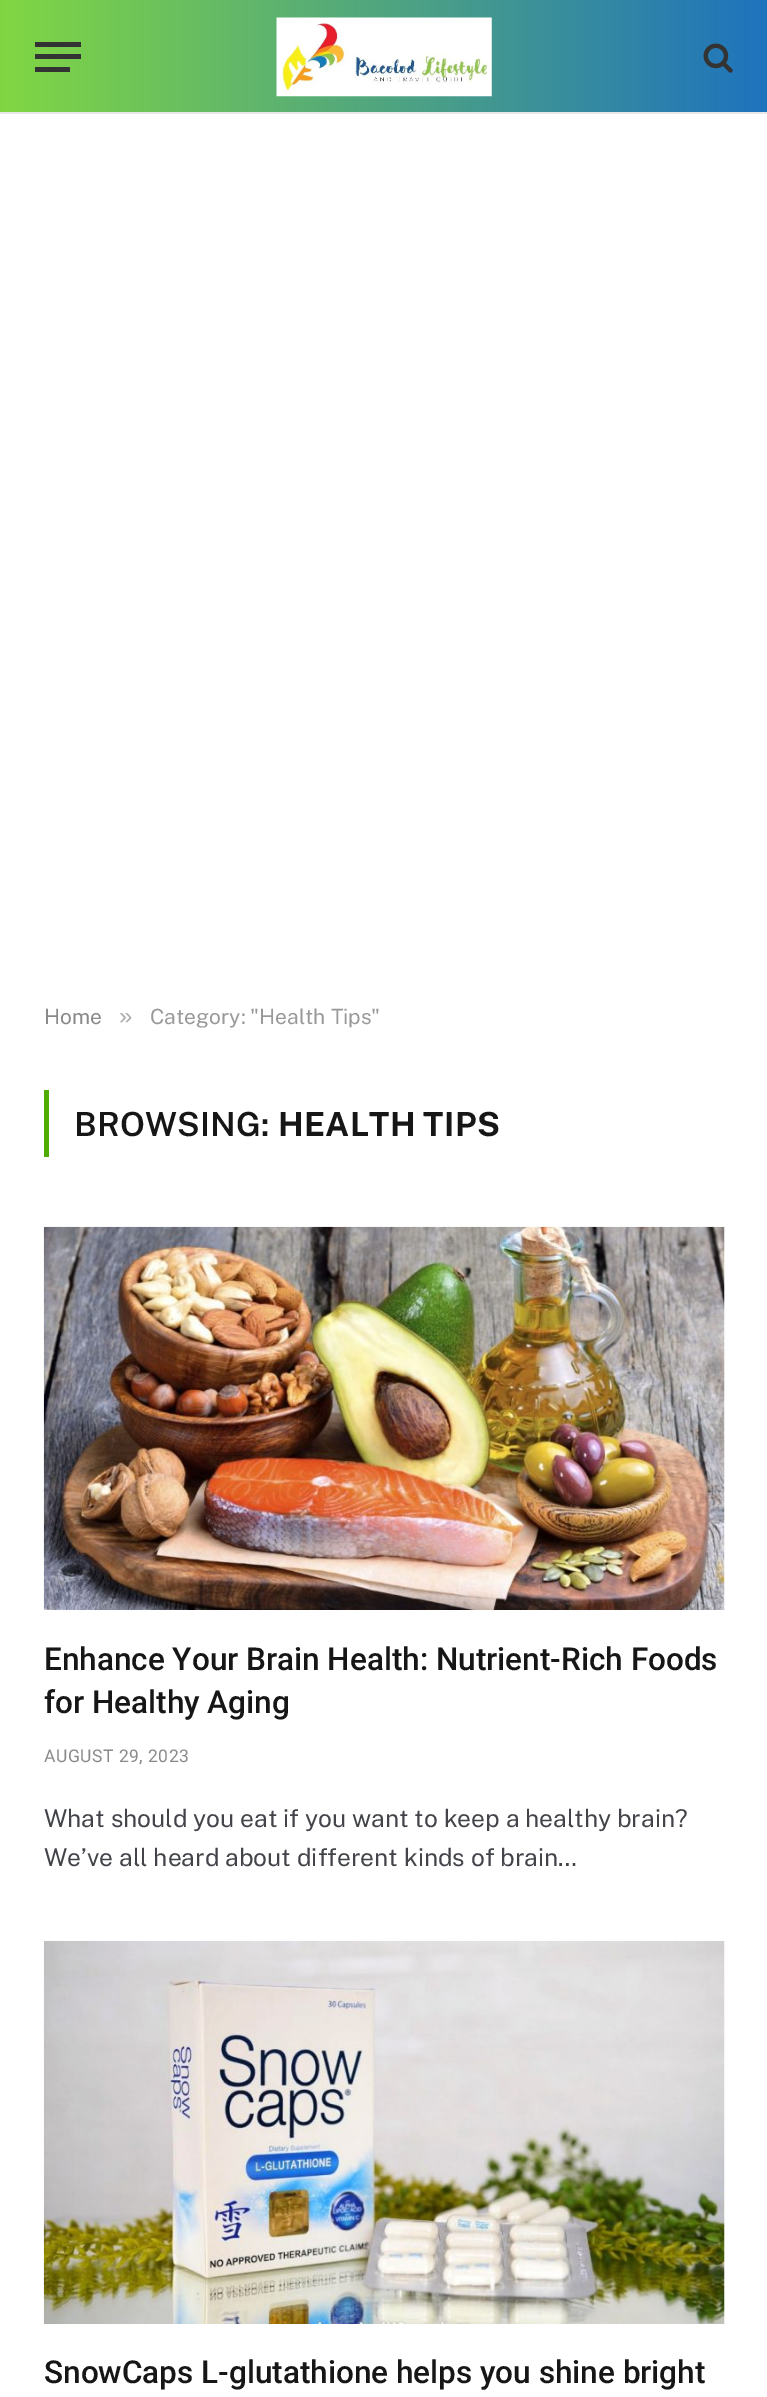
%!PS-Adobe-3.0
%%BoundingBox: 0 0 767 2397
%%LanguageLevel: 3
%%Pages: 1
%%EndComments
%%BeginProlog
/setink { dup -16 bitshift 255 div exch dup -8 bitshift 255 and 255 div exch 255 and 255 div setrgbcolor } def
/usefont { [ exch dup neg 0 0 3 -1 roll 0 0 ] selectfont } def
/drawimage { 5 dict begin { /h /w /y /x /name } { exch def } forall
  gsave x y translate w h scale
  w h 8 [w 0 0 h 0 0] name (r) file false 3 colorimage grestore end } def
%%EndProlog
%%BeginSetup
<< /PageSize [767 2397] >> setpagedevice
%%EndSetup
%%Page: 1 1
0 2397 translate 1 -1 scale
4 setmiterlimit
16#FFFFFF setink
0 0 767 2397 rectfill
gsave 0 0 moveto 767 0 lineto 767 112 lineto 0 112 lineto closepath clip newpath
<< /ShadingType 2 /ColorSpace /DeviceRGB /Coords [0 56 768 56] /Extend [true true] /Function << /FunctionType 2 /Domain [0 1] /C0 [0.506 0.843 0.259] /C1 [0.118 0.451 0.745] /N 1 >> >> shfill grestore
[
    [0 112 767 2 16#E8E8E8]
    [35 67 35 5 16#333333]
    [35 42 46 5 16#333333]
    [35 54 46 5 16#333333]
] { aload pop setink rectfill } forall
(img1.raw) 276 17 216 80 drawimage
(img2.raw) 703 43 30 30 drawimage
/PublicSans-Regular 21 usefont
16#8A8A8A setink
44 1024 moveto (Home) show
/LiberationSans-Regular 24 usefont
16#ADADAD setink
119 1024 moveto (») show
/PublicSans-Regular 21 usefont
16#999999 setink
150 1024 moveto (Category: "Health Tips") show
16#4EAD00 setink
44 1090 5 67 rectfill
/PublicSans-SemiBold 33.25 usefont
16#161616 setink
74 1136 moveto 0.25 0 (BROWSING:) ashow
/PublicSans-Bold 33.25 usefont
278 1136 moveto 0.25 0 (HEALTH TIPS) ashow
(img3.raw) 43 1226 682 384 drawimage
/Roboto-Medium 31.5 usefont
44 1670 moveto (Enhance Your Brain Health: Nutrient-Rich Foods) show
44 1713 moveto (for Healthy Aging) show
/Roboto-Regular 17.5 usefont
16#8A8A8A setink
44 1762 moveto 0.5 0 (AUGUST 29, 2023) ashow
/PublicSans-Regular 24.5 usefont
16#424449 setink
44 1827 moveto (What should you eat if you want to keep a healthy brain?) show
44 1866 moveto (We’ve all heard about different kinds of brain…) show
(img4.raw) 43 1940 682 384 drawimage
/Roboto-Medium 31.5 usefont
16#161616 setink
44 2383 moveto (SnowCaps L-glutathione helps you shine bright) show
showpage
%%EOF
